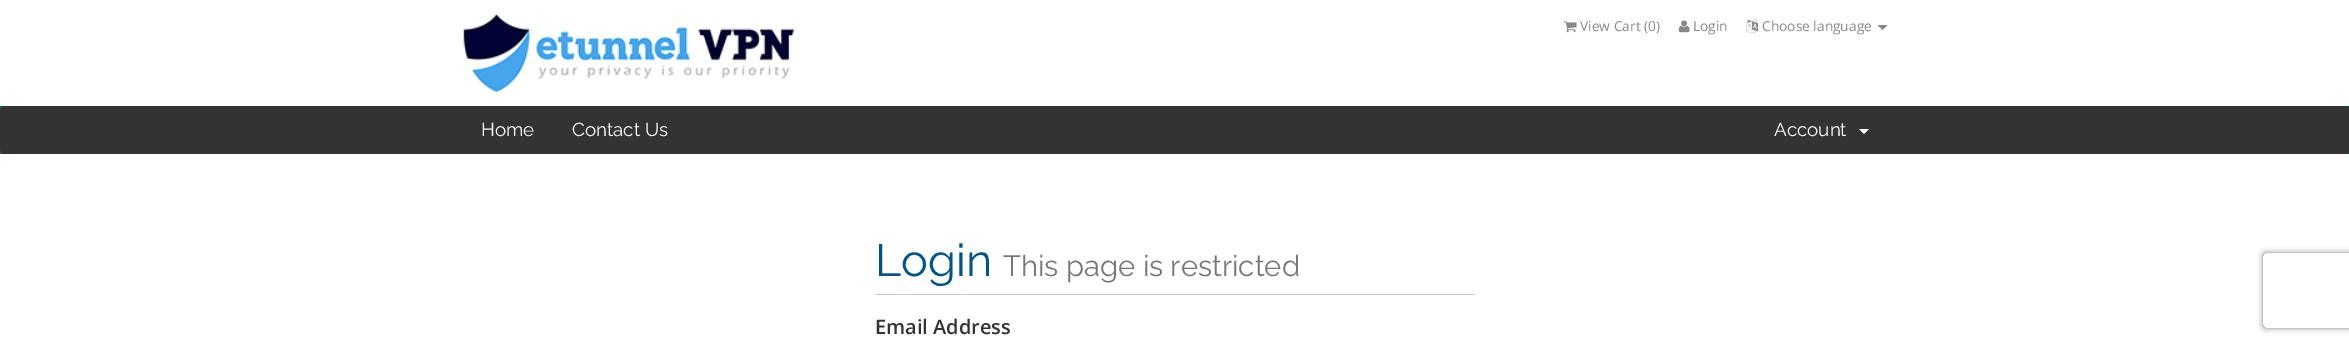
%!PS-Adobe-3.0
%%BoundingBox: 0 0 2349 345
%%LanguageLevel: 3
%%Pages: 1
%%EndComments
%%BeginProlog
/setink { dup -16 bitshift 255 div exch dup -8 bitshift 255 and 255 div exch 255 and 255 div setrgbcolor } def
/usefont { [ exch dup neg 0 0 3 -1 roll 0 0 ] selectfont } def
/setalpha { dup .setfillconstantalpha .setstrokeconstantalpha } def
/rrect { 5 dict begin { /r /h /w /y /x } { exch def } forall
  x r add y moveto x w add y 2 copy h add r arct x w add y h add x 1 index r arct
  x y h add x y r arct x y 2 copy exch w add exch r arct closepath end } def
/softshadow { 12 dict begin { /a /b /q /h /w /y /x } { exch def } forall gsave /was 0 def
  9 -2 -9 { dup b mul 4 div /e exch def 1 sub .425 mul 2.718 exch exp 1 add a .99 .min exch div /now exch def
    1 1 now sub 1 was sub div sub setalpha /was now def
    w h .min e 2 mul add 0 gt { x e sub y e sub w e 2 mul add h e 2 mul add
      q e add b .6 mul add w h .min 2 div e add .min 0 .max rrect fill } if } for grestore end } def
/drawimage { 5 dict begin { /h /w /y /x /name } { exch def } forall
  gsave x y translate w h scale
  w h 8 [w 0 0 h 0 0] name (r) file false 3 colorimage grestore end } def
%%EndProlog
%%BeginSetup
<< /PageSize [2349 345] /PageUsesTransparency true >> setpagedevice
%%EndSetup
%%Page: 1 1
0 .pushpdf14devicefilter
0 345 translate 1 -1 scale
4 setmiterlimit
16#FFFFFF setink
0 0 2349 345 rectfill
(img1.raw) 463 13 331 80 drawimage
(img2.raw) 1563 21 14 12 drawimage
/OpenSans-Regular 13.75 usefont
16#888888 setink
1580 31 moveto (View Cart \(0\)) show
(img3.raw) 1678 20 12 13 drawimage
1693 31 moveto (Login) show
(img4.raw) 1746 19 13 15 drawimage
1762 31 moveto (Choose language) show
1877.5 25 moveto 1887.5 25 lineto 1882.5 30 lineto closepath fill
16#006687 setink
0 106 2349 48 rectfill
16#333333 setink
0 106 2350 48 5 rrect fill
/Raleway-Regular 18.75 usefont
16#FFFFFF setink
[
    [(Home) 481 136]
    [(Contact Us) 572 136]
    [(Account) 1774 136]
] { aload pop moveto show } forall
1859 129 moveto 1869 129 lineto 1864 134 lineto closepath fill
16#CCCCCC setink
875 294 600 1 rectfill
/Raleway-Regular 45 usefont
16#005588 setink
875 276 moveto (Login) show
/Raleway-Regular 29.25 usefont
16#777777 setink
1003 276 moveto (This page is restricted) show
/OpenSans-SemiBold 20 usefont
16#333333 setink
875 334 moveto (Email Address) show
gsave
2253 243 moveto 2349 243 lineto 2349 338 lineto 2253 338 lineto closepath 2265.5 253 moveto 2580.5 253 lineto 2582 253 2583 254 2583 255.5 curveto 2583 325.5 lineto 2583 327 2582 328 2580.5 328 curveto 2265.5 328 lineto 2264 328 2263 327 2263 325.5 curveto 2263 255.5 lineto 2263 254 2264 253 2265.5 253 curveto closepath eoclip newpath
16#808080 setink
2263 253 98 75 2.5 3 1 softshadow
grestore
.poppdf14devicefilter showpage
%%EOF
